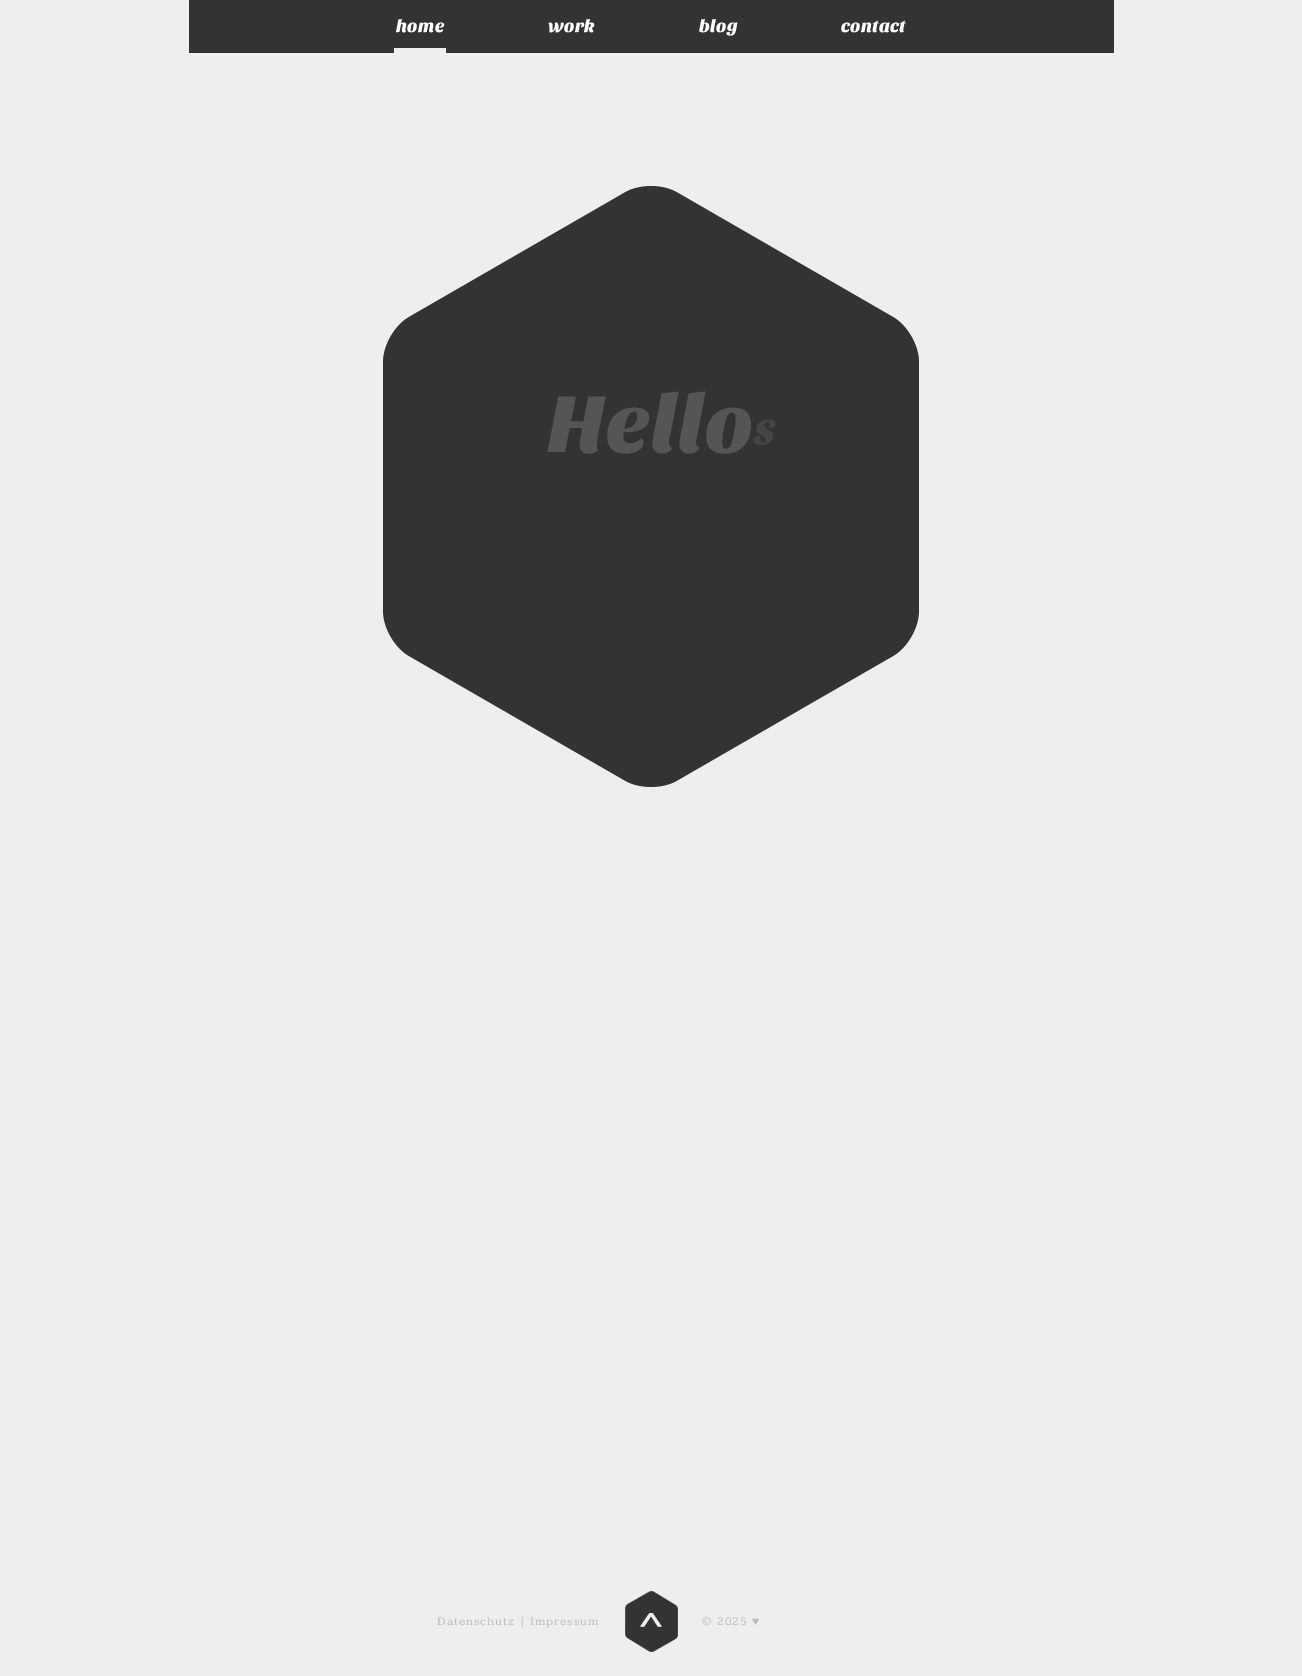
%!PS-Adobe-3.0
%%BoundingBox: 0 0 1302 1676
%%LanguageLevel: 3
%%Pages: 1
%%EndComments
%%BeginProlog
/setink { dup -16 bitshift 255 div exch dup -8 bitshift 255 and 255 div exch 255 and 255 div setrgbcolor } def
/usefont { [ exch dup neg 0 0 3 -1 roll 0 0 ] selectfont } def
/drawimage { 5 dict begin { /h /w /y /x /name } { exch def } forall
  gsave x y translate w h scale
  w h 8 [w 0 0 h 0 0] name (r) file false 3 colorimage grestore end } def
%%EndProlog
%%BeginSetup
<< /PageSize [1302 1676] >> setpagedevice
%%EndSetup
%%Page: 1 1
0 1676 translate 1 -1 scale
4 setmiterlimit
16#EEEEEE setink
0 0 1302 1676 rectfill
16#333333 setink
189 0 925 53 rectfill
/SansitaOne-Regular 18 usefont
16#FFFFFF setink
[
    [(home) 396 32]
    [(work) 548 32]
    [(blog) 699 32]
    [(contact) 841 32]
] { aload pop moveto show } forall
16#EEEEEE setink
394 48 52 5 rectfill
(img1.raw) 383 186 536 601 drawimage
/SansitaOne-Regular 84 usefont
16#555555 setink
547 452 moveto (Hello) show
/SansitaOne-Regular 46 usefont
16#454545 setink
754 444 moveto (s) show
/Kameron-Regular 12 usefont
16#BBBBBB setink
437 1625 moveto 1 0 (Datenschutz | Impressum) ashow
(img2.raw) 625 1591 53 61 drawimage
702 1625 moveto 1 0 (© 2025) ashow
/LiberationSerif-Regular 12 usefont
752 1625 moveto 1 0 (♥) ashow
showpage
%%EOF
